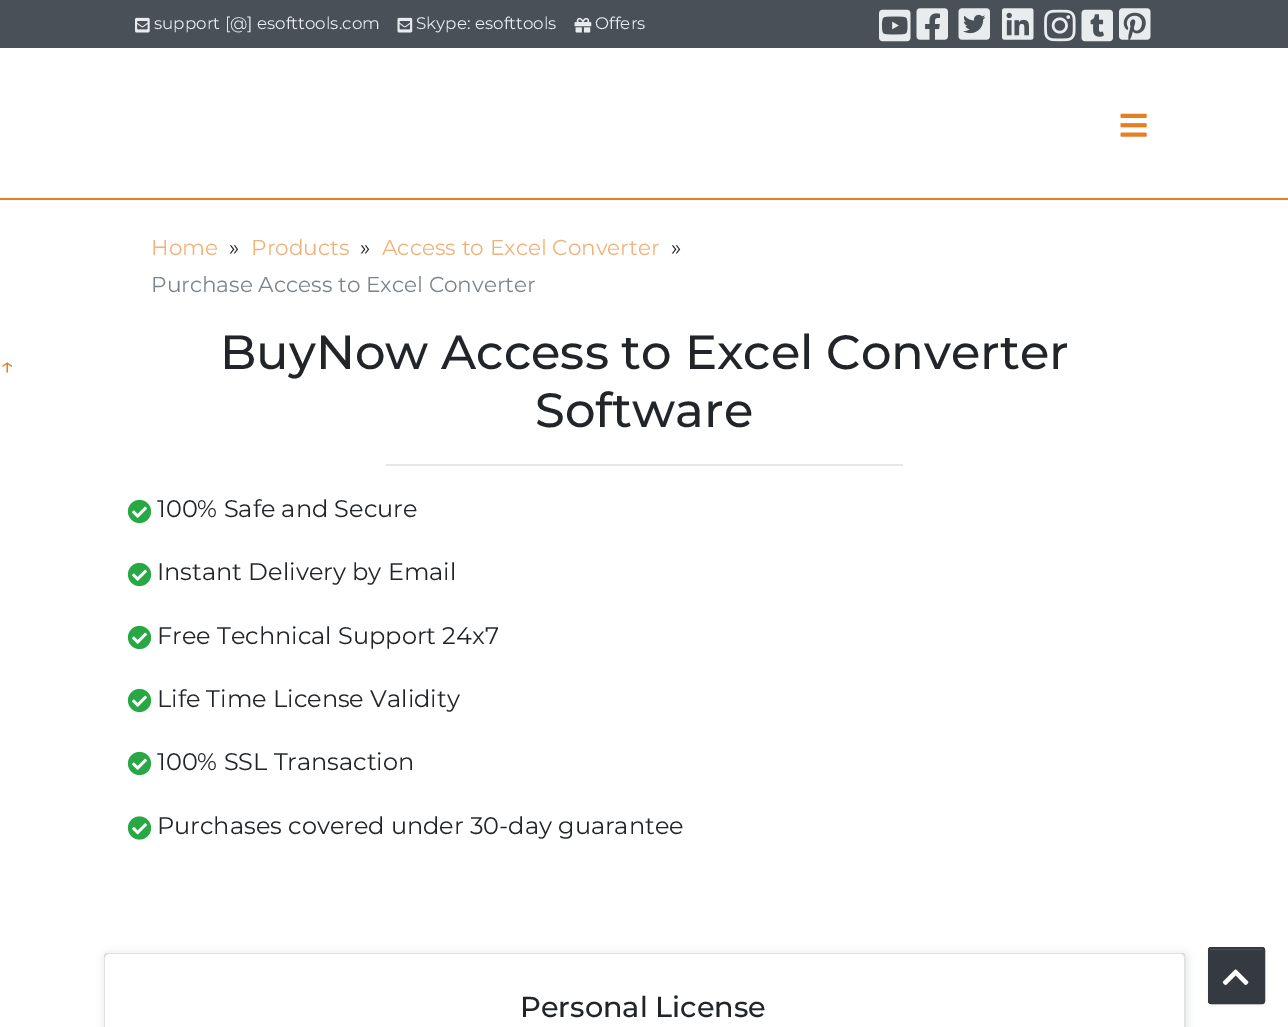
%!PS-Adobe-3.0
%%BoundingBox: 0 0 1288 1027
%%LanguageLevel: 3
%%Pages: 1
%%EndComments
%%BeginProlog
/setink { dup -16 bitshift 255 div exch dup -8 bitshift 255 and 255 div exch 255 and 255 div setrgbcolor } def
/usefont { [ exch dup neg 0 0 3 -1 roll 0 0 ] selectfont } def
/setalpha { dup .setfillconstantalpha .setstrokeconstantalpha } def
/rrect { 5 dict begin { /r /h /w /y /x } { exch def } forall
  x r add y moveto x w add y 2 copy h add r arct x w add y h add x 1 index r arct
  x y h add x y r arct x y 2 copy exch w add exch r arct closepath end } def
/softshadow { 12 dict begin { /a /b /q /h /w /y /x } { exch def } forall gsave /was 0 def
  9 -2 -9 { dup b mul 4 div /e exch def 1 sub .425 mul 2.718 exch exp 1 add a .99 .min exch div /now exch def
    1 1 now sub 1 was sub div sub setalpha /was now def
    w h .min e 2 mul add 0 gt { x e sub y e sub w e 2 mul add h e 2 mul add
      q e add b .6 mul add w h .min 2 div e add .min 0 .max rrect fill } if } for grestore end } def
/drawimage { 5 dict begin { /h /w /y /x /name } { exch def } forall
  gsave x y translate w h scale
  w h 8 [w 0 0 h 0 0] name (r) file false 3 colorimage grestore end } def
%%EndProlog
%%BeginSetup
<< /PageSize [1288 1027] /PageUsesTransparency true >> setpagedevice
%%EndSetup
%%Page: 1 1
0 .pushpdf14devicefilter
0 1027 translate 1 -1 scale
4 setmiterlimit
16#FFFFFF setink
0 0 1288 1027 rectfill
16#495057 setink
0 0 1288 48 rectfill
(img1.raw) 135 17 15 16 drawimage
/Montserrat-Regular 16.75 usefont
16#E9ECEF setink
154 29 moveto (support [@] esofttools.com) show
(img2.raw) 397 17 16 16 drawimage
416 29 moveto (Skype: esofttools) show
(img3.raw) 574 17 18 16 drawimage
595 29 moveto (Offers) show
(img4.raw) 879 9 32 33 drawimage
(img5.raw) 916 8 32 32 drawimage
(img6.raw) 958 8 32 32 drawimage
(img7.raw) 1002 8 32 32 drawimage
(img8.raw) 1044 9 32 33 drawimage
(img9.raw) 1081 9 32 33 drawimage
(img10.raw) 1119 8 32 32 drawimage
16#E67E22 setink
0 198 1288 2 rectfill
(img11.raw) 1120 113 27 24 drawimage
/Montserrat-Regular 21.6 usefont
16#F0B27A setink
151 255 moveto (Home) show
16#212529 setink
229 255 moveto (») show
16#F0B27A setink
251 255 moveto (Products) show
16#212529 setink
360 255 moveto (») show
16#F0B27A setink
382 255 moveto (Access to Excel Converter) show
16#212529 setink
671 255 moveto (») show
16#7B838A setink
151 292 moveto (Purchase Access to Excel Converter) show
/Montserrat-Regular 24 usefont
16#E67E22 setink
0 374 moveto (↑) show
/Montserrat-Medium 48 usefont
16#212529 setink
220 369 moveto (BuyNow Access to Excel Converter) show
535 427 moveto (Software) show
16#E6E6E6 setink
386 464 517 2 rectfill
(img12.raw) 127 499 25 25 drawimage
/Montserrat-Regular 24 usefont
16#212529 setink
157 517 moveto (100% Safe and Secure) show
(img12.raw) 127 562 25 25 drawimage
157 580 moveto (Instant Delivery by Email) show
(img12.raw) 127 625 25 25 drawimage
157 644 moveto (Free Technical Support 24x7) show
(img12.raw) 127 688 25 25 drawimage
157 707 moveto (Life Time License Validity) show
(img12.raw) 127 751 25 25 drawimage
157 770 moveto (100% SSL Transaction) show
(img13.raw) 127 816 25 24 drawimage
157 834 moveto (Purchases covered under 30-day guarantee) show
gsave
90 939 moveto 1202 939 lineto 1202 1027 lineto 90 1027 lineto closepath 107 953 moveto 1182 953 lineto 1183.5 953 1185 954.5 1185 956 curveto 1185 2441 lineto 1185 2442.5 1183.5 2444 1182 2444 curveto 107 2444 lineto 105.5 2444 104 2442.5 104 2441 curveto 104 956 lineto 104 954.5 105.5 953 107 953 curveto closepath eoclip newpath
16#DEE2E6 setink
105 954 1082 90 3 4.5 1 softshadow
grestore
0.12 setalpha
16#000000 setink
2 setlinewidth
105 954 1079 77 2 rrect stroke
1 setalpha
16#FFFFFF setink
110 954 moveto 1179 954 lineto 1182 954 1184 956 1184 959 curveto 1184 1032 lineto 105 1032 lineto 105 959 lineto 105 956 107 954 110 954 curveto closepath fill
/Montserrat-Medium 28.75 usefont
16#212529 setink
520 1017 moveto (Personal License) show
16#000000 setink
1208 948 57 57 3 1 0.07 softshadow
16#343A40 setink
1208 947 57 57 3 rrect fill
16#52585D setink
1210 950 moveto 1263 950 lineto 1263 951 lineto 1263 946 1258 948 1253 948 curveto 1219 948 lineto 1214 948 1209 946 1209 951 curveto closepath fill
16#343A40 setink
1209 948 55 55 2 rrect stroke
(img14.raw) 1222 969 27 16 drawimage
.poppdf14devicefilter showpage
%%EOF
